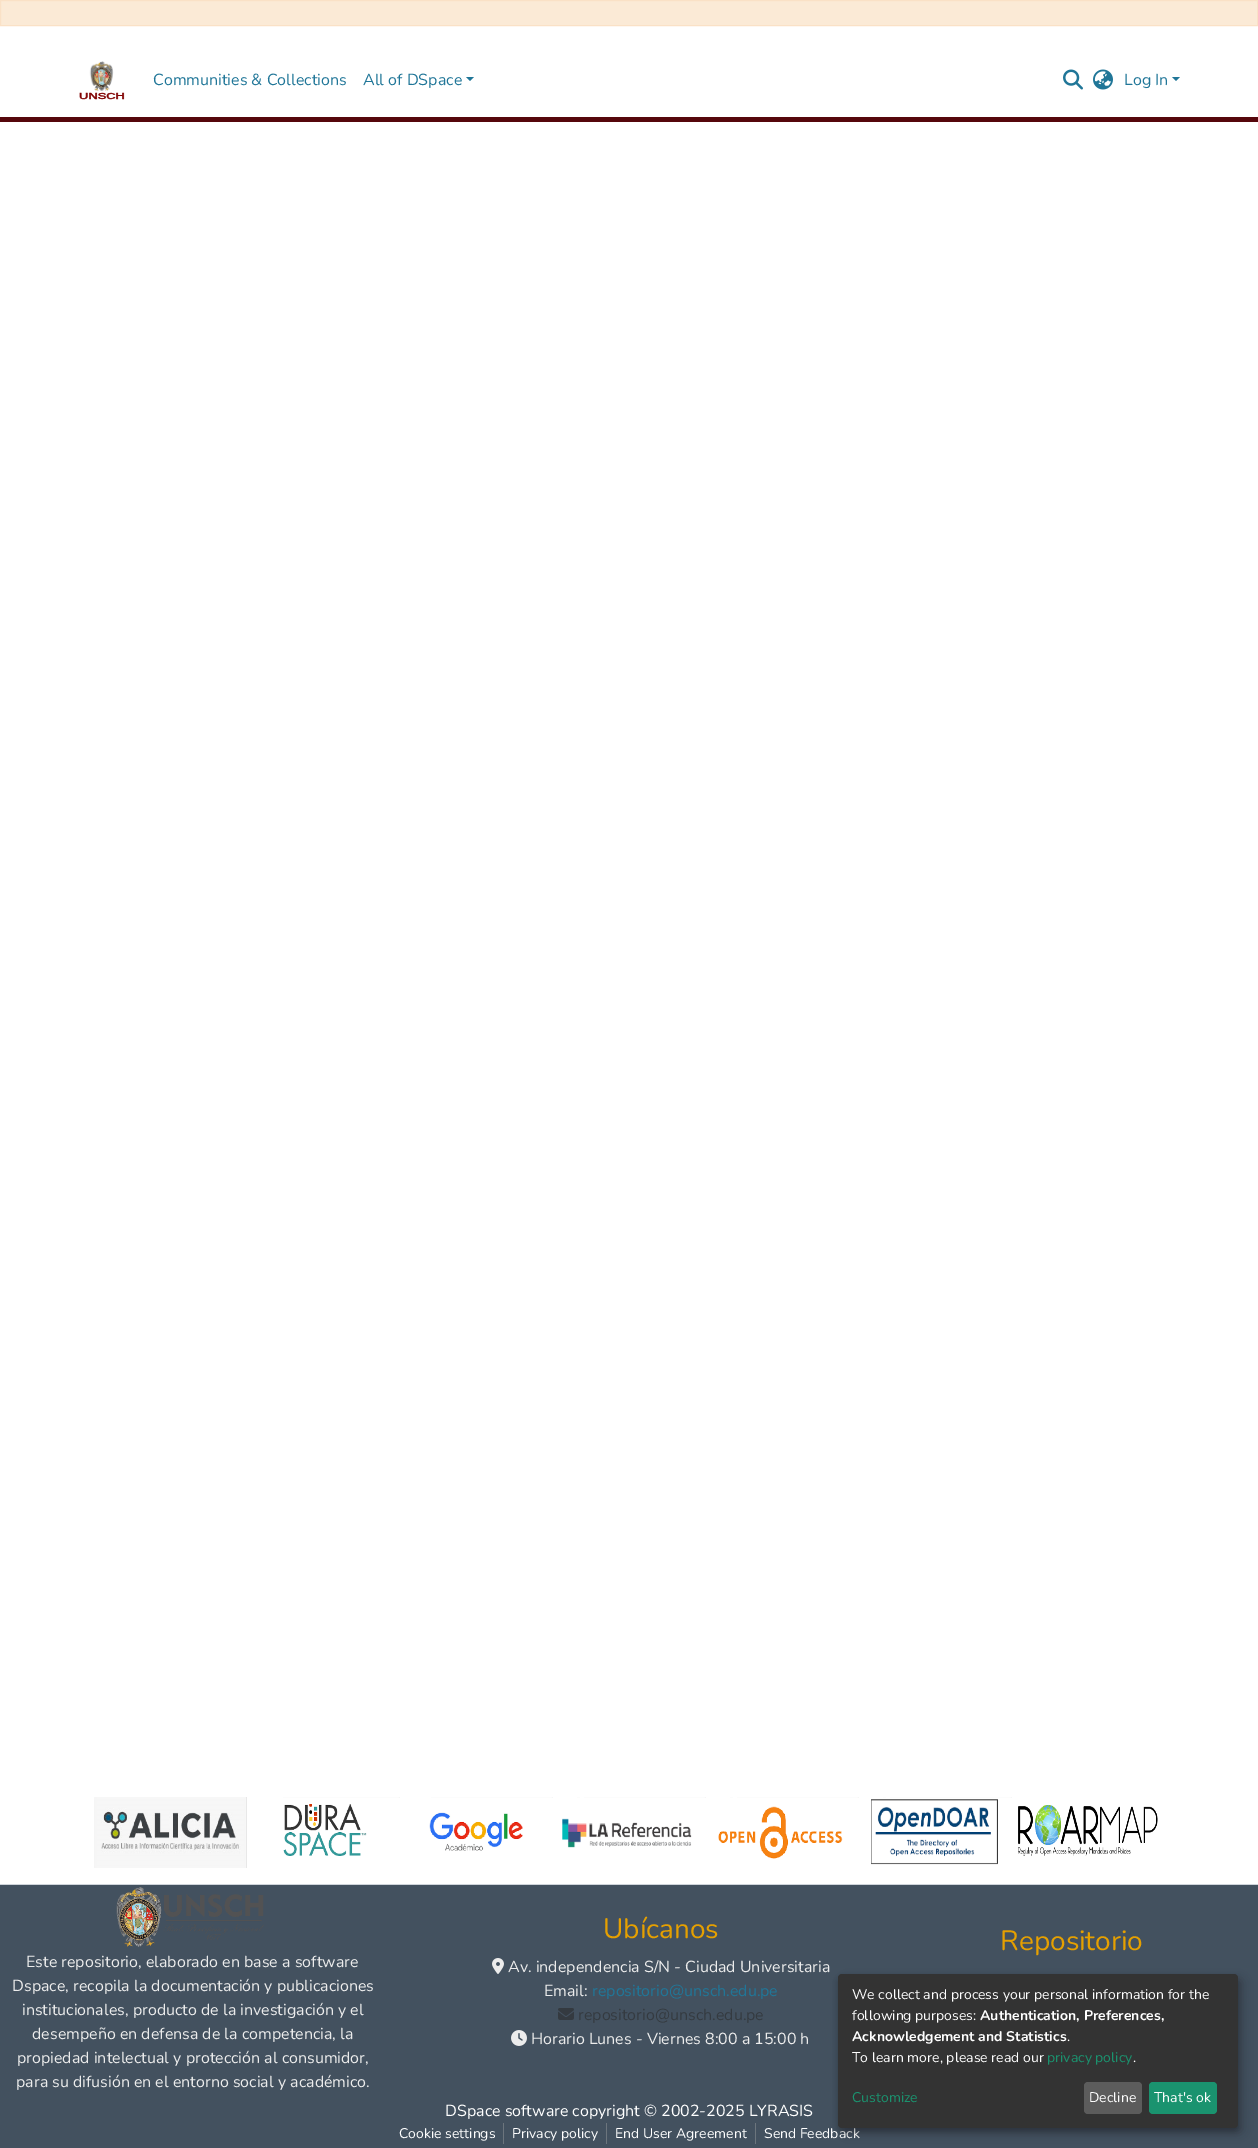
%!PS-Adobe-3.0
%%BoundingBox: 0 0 1258 2148
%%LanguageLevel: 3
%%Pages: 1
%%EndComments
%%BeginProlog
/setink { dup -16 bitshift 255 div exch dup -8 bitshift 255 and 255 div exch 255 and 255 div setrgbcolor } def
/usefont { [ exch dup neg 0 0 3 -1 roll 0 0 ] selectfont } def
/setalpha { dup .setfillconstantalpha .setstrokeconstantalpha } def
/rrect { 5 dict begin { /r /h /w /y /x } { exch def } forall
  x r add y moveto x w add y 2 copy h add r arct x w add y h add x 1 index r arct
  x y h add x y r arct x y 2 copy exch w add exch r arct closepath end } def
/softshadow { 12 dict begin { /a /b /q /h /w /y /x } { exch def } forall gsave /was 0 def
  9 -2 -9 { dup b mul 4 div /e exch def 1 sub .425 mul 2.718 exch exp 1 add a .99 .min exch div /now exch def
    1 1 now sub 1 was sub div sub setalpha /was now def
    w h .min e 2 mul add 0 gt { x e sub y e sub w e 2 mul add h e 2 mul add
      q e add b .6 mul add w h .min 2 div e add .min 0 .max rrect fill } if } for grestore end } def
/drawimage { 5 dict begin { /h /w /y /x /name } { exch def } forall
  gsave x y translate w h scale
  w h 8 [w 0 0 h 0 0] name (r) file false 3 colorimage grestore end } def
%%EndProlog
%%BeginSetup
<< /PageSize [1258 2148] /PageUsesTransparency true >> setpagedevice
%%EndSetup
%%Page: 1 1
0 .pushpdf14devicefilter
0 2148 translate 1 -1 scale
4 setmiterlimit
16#FFFFFF setink
0 0 1258 2148 rectfill
16#FBEAD6 setink
0.5 0.5 moveto 1257.5 0.5 lineto 1257.5 25.5 lineto 0.5 25.5 lineto closepath gsave fill grestore
16#FAE1C6 setink
stroke
16#56070C setink
0 117 1258 5 rectfill
(img1.raw) 79 61 46 39 drawimage
/Nunito-Regular 16 usefont
16#207698 setink
153 85 moveto (Communities & Collections) show
363 85 moveto (All of DSpace) show
466 77 moveto 474 77 lineto 470 81 lineto closepath fill
(img2.raw) 1063 69 20 21 drawimage
(img3.raw) 1093 69 20 21 drawimage
1124 85 moveto (Log In) show
1172 77 moveto 1180 77 lineto 1176 81 lineto closepath fill
(img4.raw) 94 1797 153 71 drawimage
(img5.raw) 283 1797 117 59 drawimage
(img6.raw) 429 1797 124 54 drawimage
(img7.raw) 562 1797 144 51 drawimage
(img8.raw) 718 1797 141 62 drawimage
(img9.raw) 871 1797 141 68 drawimage
(img10.raw) 1018 1805 140 51 drawimage
16#43515F setink
0 1885 1258 263 rectfill
16#CED4DA setink
0 1884 1258 1 rectfill
/Nunito-Regular 28 usefont
16#E6A000 setink
603 1938 moveto (Ubícanos) show
(img11.raw) 492 1958 12 16 drawimage
/Nunito-Regular 16 usefont
16#ECECEC setink
508 1972 moveto (Av. independencia S/N - Ciudad Universitaria) show
544 1996 moveto (Email:) show
16#207698 setink
592 1996 moveto (repositorio@unsch.edu.pe) show
(img12.raw) 558 2008 16 12 drawimage
16#343A40 setink
578 2020 moveto (repositorio@unsch.edu.pe) show
(img13.raw) 511 2030 16 16 drawimage
16#ECECEC setink
531 2044 moveto (Horario Lunes - Viernes 8:00 a 15:00 h) show
/Nunito-Regular 28 usefont
16#E6A000 setink
1000 1950 moveto (Repositorio) show
(img14.raw) 116 1887 148 60 drawimage
/Nunito-Regular 16 usefont
16#ECECEC setink
[
    [(Este repositorio, elaborado en base a software) 26 1967]
    [(Dspace, recopila la documentación y publicaciones) 12 1991]
    [(institucionales, producto de la investigación y el) 22 2015]
    [(desempeño en defensa de la competencia, la) 32 2039]
    [(propiedad intelectual y protección al consumidor,) 17 2063]
    [(para su difusión en el entorno social y académico.) 16 2087]
] { aload pop moveto show } forall
16#FFFFFF setink
445 2116 moveto (DSpace software copyright © 2002-2025 LYRASIS) show
/Nunito-Regular 14 usefont
399 2138 moveto (Cookie settings) show
16#6C757D setink
503 2123 1 21 rectfill
16#FFFFFF setink
512 2138 moveto (Privacy policy) show
16#6C757D setink
606 2123 1 21 rectfill
16#FFFFFF setink
615 2138 moveto (End User Agreement) show
16#6C757D setink
755 2123 1 21 rectfill
16#FFFFFF setink
764 2138 moveto (Send Feedback) show
16#000000 setink
843 1979 400 154 4 5 0.19 softshadow
838 1978 400 154 4 3 0.2 softshadow
16#333333 setink
838 1974 400 154 4 rrect fill
16#FFFFFF setink
852 1999 moveto (We collect and process your personal information for the) show
852 2020 moveto (following purposes:) show
/Nunito-Bold 14 usefont
980 2020 moveto (Authentication, Preferences,) show
852 2041 moveto (Acknowledgement and Statistics) show
/Nunito-Regular 14 usefont
1067 2041 moveto (.) show
852 2062 moveto (To learn more, please read our) show
16#1A936F setink
1047 2062 moveto (privacy policy) show
16#FFFFFF setink
1133 2062 moveto (.) show
16#1A936F setink
852 2102 moveto (Customize) show
16#5C5C5C setink
1084 2082 58 32 4 rrect fill
16#FFFFFF setink
1089 2102 moveto (Decline) show
16#1A936F setink
1149 2082 68 32 4 rrect fill
16#FFFFFF setink
1154 2102 moveto (That's ok) show
.poppdf14devicefilter showpage
%%EOF
